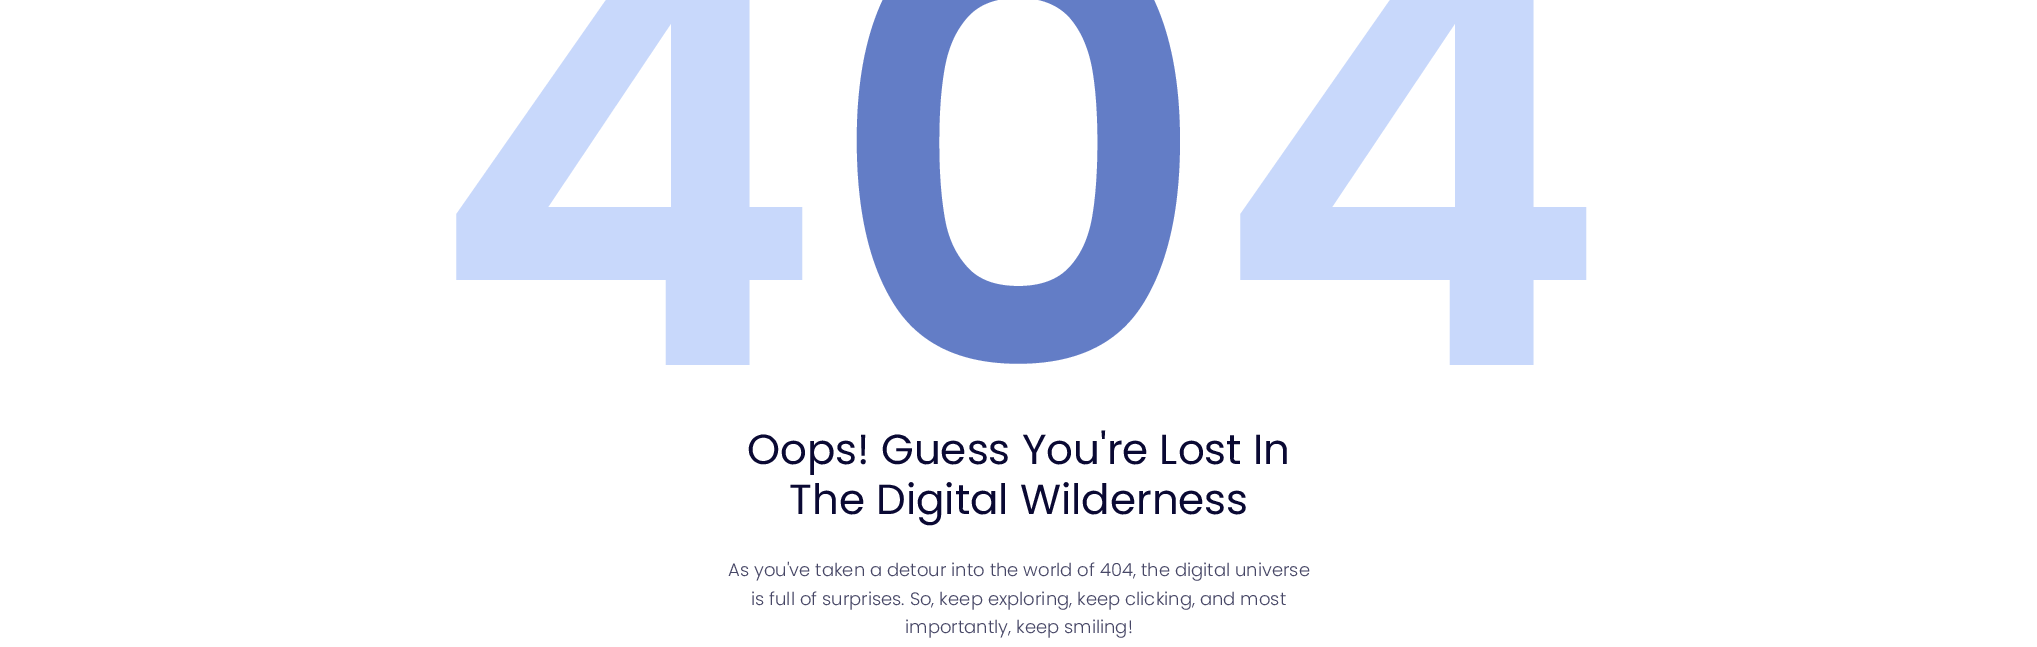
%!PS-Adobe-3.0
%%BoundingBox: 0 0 2037 647
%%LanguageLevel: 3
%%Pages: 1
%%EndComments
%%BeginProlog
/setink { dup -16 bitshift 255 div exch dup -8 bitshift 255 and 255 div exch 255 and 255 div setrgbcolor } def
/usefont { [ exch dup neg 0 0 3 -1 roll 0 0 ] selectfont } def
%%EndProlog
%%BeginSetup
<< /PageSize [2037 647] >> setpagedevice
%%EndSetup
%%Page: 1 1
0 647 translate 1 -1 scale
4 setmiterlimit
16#FFFFFF setink
0 0 2037 647 rectfill
/Poppins-SemiBold 600 usefont
16#C8D8FB setink
428 365 moveto (4) show
16#637DC6 setink
825 365 moveto (0) show
16#C8D8FB setink
1212 365 moveto (4) show
/Poppins-Regular 42 usefont
16#0A0933 setink
747 464 moveto (Oops! Guess You're Lost In) show
789 514 moveto (The Digital Wilderness) show
/Poppins-Light 18 usefont
16#474766 setink
[
    [(As you've taken a detour into the world of 404, the digital universe) 728 576]
    [(is full of surprises. So, keep exploring, keep clicking, and most) 751 605]
    [(importantly, keep smiling!) 905 633]
] { aload pop moveto show } forall
showpage
%%EOF
